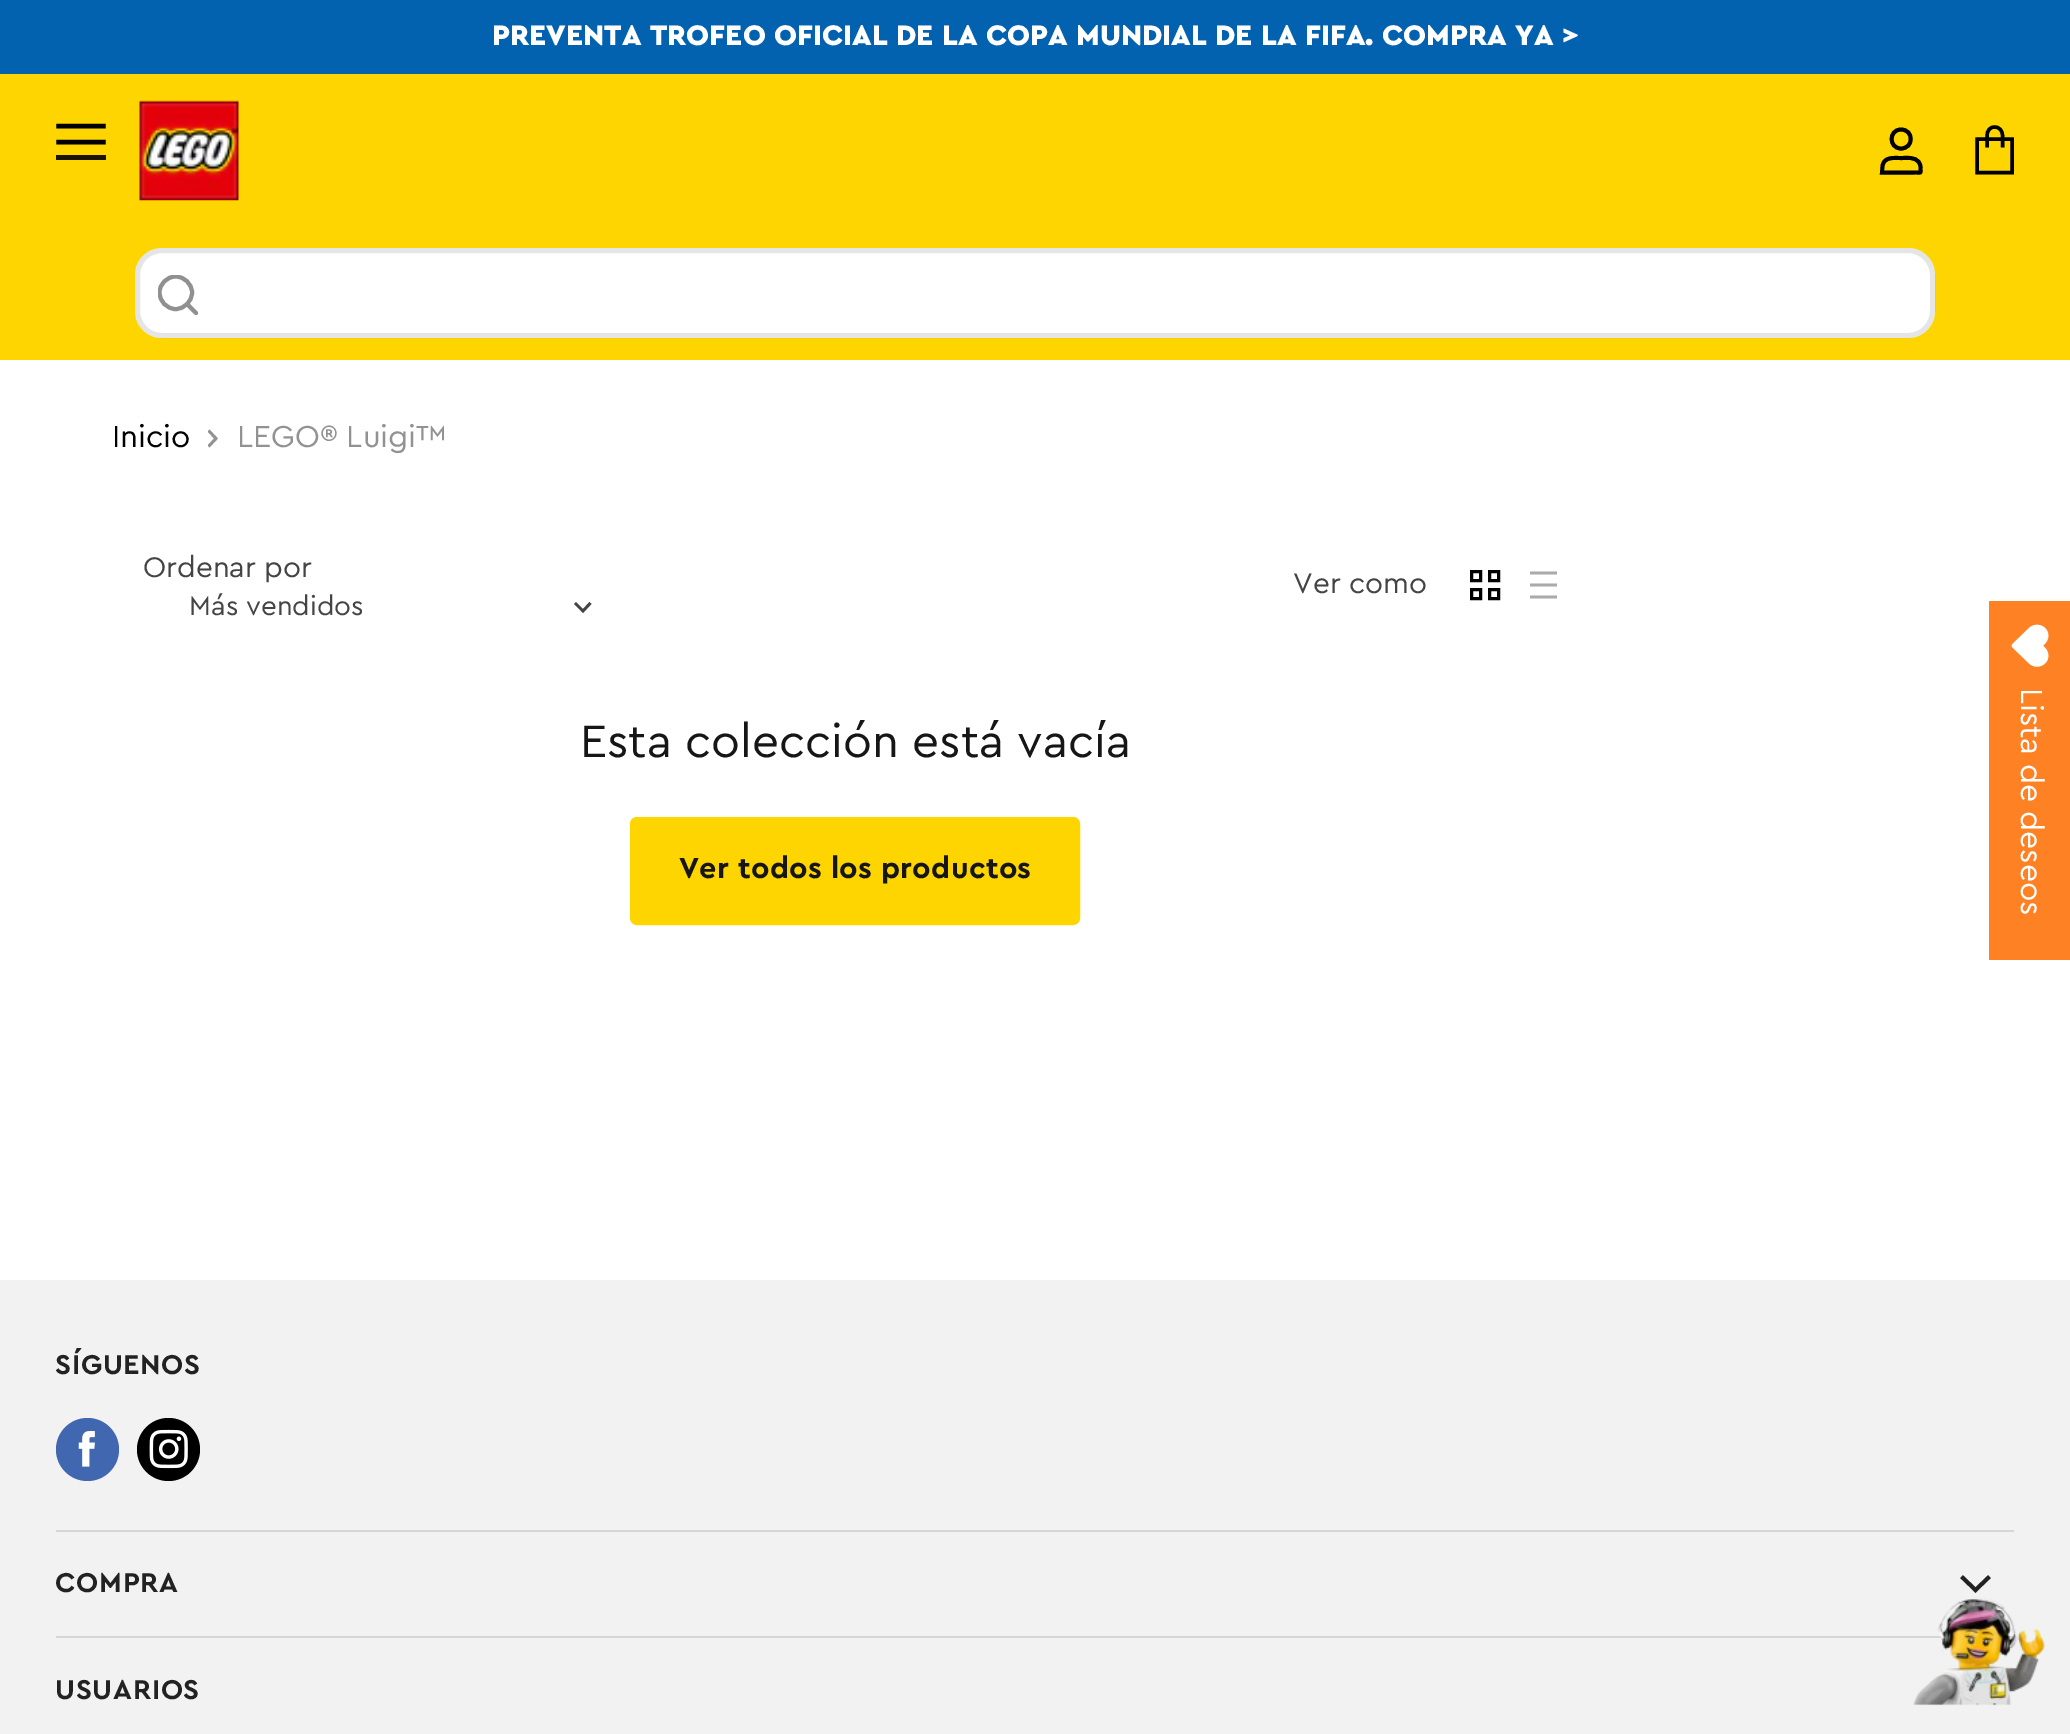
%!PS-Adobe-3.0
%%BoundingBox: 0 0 2070 1734
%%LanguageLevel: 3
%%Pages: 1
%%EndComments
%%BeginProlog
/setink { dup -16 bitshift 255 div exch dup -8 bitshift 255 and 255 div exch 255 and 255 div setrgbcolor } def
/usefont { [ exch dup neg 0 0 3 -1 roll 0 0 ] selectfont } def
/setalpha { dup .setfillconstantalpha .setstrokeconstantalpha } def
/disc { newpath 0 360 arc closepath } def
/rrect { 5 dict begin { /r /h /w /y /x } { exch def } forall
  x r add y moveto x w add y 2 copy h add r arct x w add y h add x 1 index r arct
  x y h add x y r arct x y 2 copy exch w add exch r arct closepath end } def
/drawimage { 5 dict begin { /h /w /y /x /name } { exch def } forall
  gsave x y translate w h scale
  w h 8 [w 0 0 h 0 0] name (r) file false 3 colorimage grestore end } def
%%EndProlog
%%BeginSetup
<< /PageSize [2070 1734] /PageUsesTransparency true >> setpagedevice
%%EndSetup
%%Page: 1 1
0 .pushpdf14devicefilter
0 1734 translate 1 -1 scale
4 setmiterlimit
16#FFFFFF setink
0 0 2070 1734 rectfill
16#0362AF setink
0 0 2070 74 rectfill
/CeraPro-Black 29.65 usefont
16#FFFFFF setink
492 45 moveto (PREVENTA TROFEO OFICIAL DE LA COPA MUNDIAL DE LA FIFA. COMPRA YA >) show
16#FFD500 setink
0 74 2070 286 rectfill
16#FFFFFF setink
135 248 1800 90 27 rrect fill
0.1 setalpha
16#000000 setink
5 setlinewidth
137.5 250.5 1795 85 24.5 rrect stroke
gsave
158 275 40 40 rectclip
1 setalpha
16#909090 setink
4 setlinewidth
1 setlinecap
1 setlinejoin
196 313 moveto 187 304 lineto 192 292.5 moveto 192 301.5 184.5 309 175.5 309 curveto 167 309 159.5 301.5 159.5 292.5 curveto 159.5 284 167 276.5 175.5 276.5 curveto 184.5 276.5 192 284 192 292.5 curveto closepath stroke
grestore
1 setalpha
4.5 setlinewidth
2 setlinecap
1 setlinejoin
103.5 126 moveto 58.5 126 lineto 103.5 142 moveto 58.5 142 lineto stroke
16#1A1500 setink
56 155 50 5 rectfill
(img1.raw) 139 100 100 101 drawimage
16#000000 setink
3.9 setlinewidth
0 setlinecap
0 setlinejoin
1920.5 167.5 moveto 1920.5 174 1922 172.5 1914 172.5 curveto 1882 172.5 lineto 1882.5 166 lineto 1884 156.5 1894 158 1901 158 curveto 1907 158 1915 156.5 1919 162.5 curveto 1920 164 1920.5 165.5 1920.5 167.5 curveto closepath stroke
1 setlinejoin
1901 148.5 moveto 1914 148.5 1914 129.5 1901 129.5 curveto 1888.5 129.5 1888.5 148.5 1901 148.5 curveto closepath stroke
3.4 setlinewidth
0 setlinejoin
1977 139 moveto 2012 139 lineto 2012 172.5 lineto 1977 172.5 lineto closepath 2002.5 147.5 moveto 2002.5 136 lineto 2002.5 130 1999 127 1994.5 127 curveto 1990.5 127 1987 130 1987 136 curveto 1987 147.5 lineto stroke
/CeraPro-Regular 31.75 usefont
112 447 moveto (Inicio) show
gsave
208 447.5 moveto 208 429.5 lineto 219.5 429.5 lineto 219.5 447.5 lineto closepath clip newpath
16#929292 setink
2.8 setlinewidth
208.5 446.5 moveto 216 438.5 lineto 208.5 430.5 lineto stroke
grestore
16#929292 setink
237 447 moveto (LEGO® Luigi™) show
/CeraPro-Regular 29.65 usefont
16#444444 setink
143 577 moveto (Ordenar por) show
/CeraPro-Regular 27.75 usefont
189 615 moveto (Más vendidos) show
2.8 setlinewidth
2 setlinecap
583 611 moveto 589.5 604 lineto 583 611 moveto 576 604 lineto stroke
/CeraPro-Regular 29.65 usefont
1293 593 moveto (Ver como) show
16#000000 setink
3 setlinewidth
0 setlinecap
1471.5 571.5 9 9 rectstroke
1489.5 571.5 9 9 rectstroke
1471.5 589.5 9 9 rectstroke
1489.5 589.5 9 9 rectstroke
16#AAAAAA setink
2.8 setlinewidth
1 setlinejoin
1530 573 moveto 1557 573 lineto 1530 597 moveto 1557 597 lineto 1530 585 moveto 1557 585 lineto stroke
/CeraPro-Regular 47.5 usefont
16#161616 setink
580 757 moveto (Esta colección está vacía) show
16#FFD500 setink
631 818 448 106 6 rrect gsave fill grestore
2 setlinewidth
0 setlinejoin
stroke
/CeraPro-Bold 30.4 usefont
16#161616 setink
679 878 moveto 0.3 0 (Ver todos los productos) ashow
16#FE8123 setink
1989 601 81 359 rectfill
(img2.raw) 2011 624 38 43 drawimage
/CeraPro-Regular 31.75 usefont
16#FFFFFF setink
gsave 2021 688 translate 90 rotate 0 0 moveto (Lista de deseos) show grestore
16#F2F2F2 setink
0 1280 2070 454 rectfill
16#D6D6D6 setink
56 1530 1958 2 rectfill
/CeraPro-Bold 28.5 usefont
16#222222 setink
55 1374 moveto 0.75 0 (SÍGUENOS) ashow
16#4267B1 setink
87.5 1449.5 31.5 disc fill
(img3.raw) 78 1431 17 36 drawimage
16#000000 setink
168.5 1449.5 31.5 disc fill
(img4.raw) 149 1429 39 40 drawimage
16#D6D6D6 setink
56 1636 1958 2 rectfill
16#222222 setink
55 1592 moveto 0.75 0 (COMPRA) ashow
3.9 setlinewidth
2 setlinecap
1975.5 1590 moveto 1988 1578 lineto 1975.5 1590 moveto 1963 1578 lineto stroke
55 1699 moveto 0.75 0 (USUARIOS) ashow
(img5.raw) 1913 1597 132 109 drawimage
.poppdf14devicefilter showpage
%%EOF
